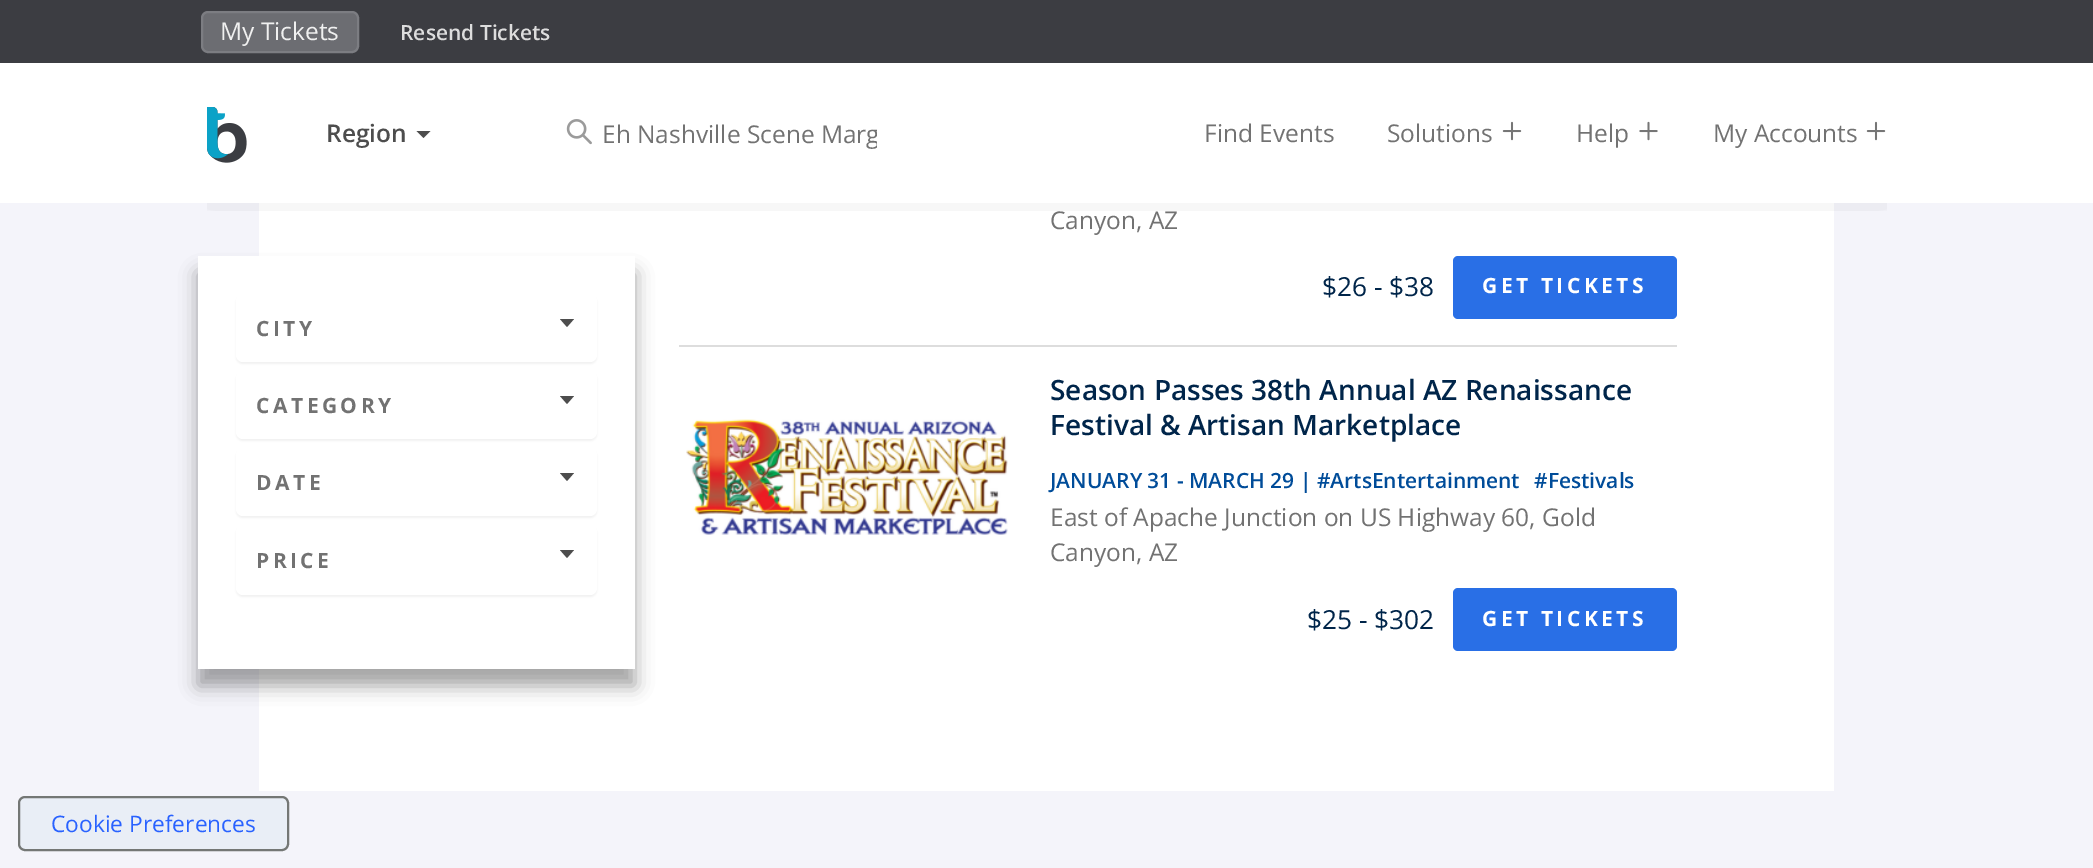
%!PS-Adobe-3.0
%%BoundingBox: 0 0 2093 868
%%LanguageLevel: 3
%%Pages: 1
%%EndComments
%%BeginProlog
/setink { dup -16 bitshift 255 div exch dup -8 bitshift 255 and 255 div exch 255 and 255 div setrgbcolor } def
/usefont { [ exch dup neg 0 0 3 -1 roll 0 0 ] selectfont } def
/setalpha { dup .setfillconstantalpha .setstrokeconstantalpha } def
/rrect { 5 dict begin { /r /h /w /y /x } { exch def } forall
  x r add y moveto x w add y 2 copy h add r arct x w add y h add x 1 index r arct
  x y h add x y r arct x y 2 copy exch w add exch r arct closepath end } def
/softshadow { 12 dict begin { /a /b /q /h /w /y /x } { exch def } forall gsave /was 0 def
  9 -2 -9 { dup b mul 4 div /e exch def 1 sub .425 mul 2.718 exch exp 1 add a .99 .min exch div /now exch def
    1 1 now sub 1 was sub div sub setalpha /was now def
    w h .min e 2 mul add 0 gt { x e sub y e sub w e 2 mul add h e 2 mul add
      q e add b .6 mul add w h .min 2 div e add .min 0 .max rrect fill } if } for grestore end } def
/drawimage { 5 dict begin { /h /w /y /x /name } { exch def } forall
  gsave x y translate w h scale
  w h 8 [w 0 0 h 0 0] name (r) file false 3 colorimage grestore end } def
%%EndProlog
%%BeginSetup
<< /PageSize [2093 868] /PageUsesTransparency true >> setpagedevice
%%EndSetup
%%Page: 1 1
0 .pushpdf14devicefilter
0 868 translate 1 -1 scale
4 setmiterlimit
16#F4F4FA setink
0 0 2093 868 rectfill
16#3C3D42 setink
0 0 2093 63 rectfill
16#6C6D72 setink
202 12 156 40 6 rrect gsave fill grestore
16#7C7D82 setink
2 setlinewidth
stroke
/OpenSans-Regular 24.5 usefont
16#F0F0F0 setink
220 40 moveto (My Tickets) show
/OpenSans-SemiBold 21 usefont
16#DDDDDD setink
400 40 moveto (Resend Tickets) show
16#FFFFFF setink
0 63 2093 140 rectfill
259 203 1575 588 rectfill
gsave
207 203 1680 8 rectclip
16#000000 setink
207 119 1680 70 0 17.5 0.2 softshadow
grestore
(img1.raw) 207 107 40 56 drawimage
/OpenSans-SemiBold 24.5 usefont
16#4D4D4D setink
326 142 moveto (Region) show
416.5 131 moveto 430.5 131 lineto 423.5 138 lineto closepath fill
(img2.raw) 566 119 26 26 drawimage
gsave
602 117 275 34 rectclip
/OpenSans-Regular 24.5 usefont
16#727272 setink
602 143 moveto (Eh Nashville Scene Marg) show
grestore
/OpenSans-Regular 24.5 usefont
16#727272 setink
1204 142 moveto (Find Events) show
1387 142 moveto (Solutions) show
(img3.raw) 1502 121 20 20 drawimage
1576 142 moveto (Help) show
(img4.raw) 1639 121 19 20 drawimage
1713 142 moveto (My Accounts) show
(img3.raw) 1866 121 20 20 drawimage
16#000000 setink
198 273 437 413 0 9 0.35 softshadow
16#FFFFFF setink
198 256 437 413 rectfill
16#000000 setink
236 296 361 68 7 1 0.05 softshadow
16#FFFFFF setink
236 294 361 68 7 rrect fill
/OpenSans-Bold 21 usefont
16#727272 setink
256 336 moveto 3.5 0 (CITY) ashow
16#4D4D4D setink
560 319 moveto 574 319 lineto 567 327 lineto closepath fill
16#000000 setink
236 373 361 68 7 1 0.05 softshadow
16#FFFFFF setink
236 371 361 68 7 rrect fill
16#727272 setink
256 413 moveto 3.5 0 (CATEGORY) ashow
16#4D4D4D setink
560 396 moveto 574 396 lineto 567 404 lineto closepath fill
16#000000 setink
236 450 361 68 7 1 0.05 softshadow
16#FFFFFF setink
236 448 361 68 7 rrect fill
16#727272 setink
256 490 moveto 3.5 0 (DATE) ashow
16#4D4D4D setink
560 473 moveto 574 473 lineto 567 481 lineto closepath fill
16#000000 setink
236 527 361 70 7 1 0.05 softshadow
16#FFFFFF setink
236 525 361 70 7 rrect fill
16#727272 setink
256 568 moveto 3.5 0 (PRICE) ashow
16#4D4D4D setink
560 550 moveto 574 550 lineto 567 558 lineto closepath fill
/OpenSans-Regular 24.5 usefont
16#727272 setink
1050 229 moveto (Canyon, AZ) show
/OpenSans-Regular 26.25 usefont
16#00254A setink
1322 296 moveto ($26 - $38) show
16#296FE6 setink
1453 256 224 63 5 rrect fill
/OpenSans-Bold 21 usefont
16#FFFFFF setink
1482 293 moveto 3.5 0 (GET TICKETS) ashow
16#DDDDDD setink
679 345 998 2 rectfill
(img5.raw) 686 419 322 116 drawimage
/OpenSans-SemiBold 28 usefont
16#00254A setink
1050 400 moveto (Season Passes 38th Annual AZ Renaissance) show
1050 435 moveto (Festival & Artisan Marketplace) show
/OpenSans-SemiBold 21 usefont
16#004C99 setink
1050 488 moveto (JANUARY 31 - MARCH 29 | #ArtsEntertainment) show
1534 488 moveto (#Festivals) show
/OpenSans-Regular 24.5 usefont
16#727272 setink
1050 526 moveto (East of Apache Junction on US Highway 60, Gold) show
1050 561 moveto (Canyon, AZ) show
/OpenSans-Regular 26.25 usefont
16#00254A setink
1307 629 moveto ($25 - $302) show
16#296FE6 setink
1453 588 224 63 5 rrect fill
/OpenSans-Bold 21 usefont
16#FFFFFF setink
1482 626 moveto 3.5 0 (GET TICKETS) ashow
16#E9EEF6 setink
19 797 269 53 6 rrect gsave fill grestore
16#747775 setink
stroke
/OpenSans-Regular 22.75 usefont
16#2962FF setink
51 832 moveto (Cookie Preferences) show
.poppdf14devicefilter showpage
%%EOF
